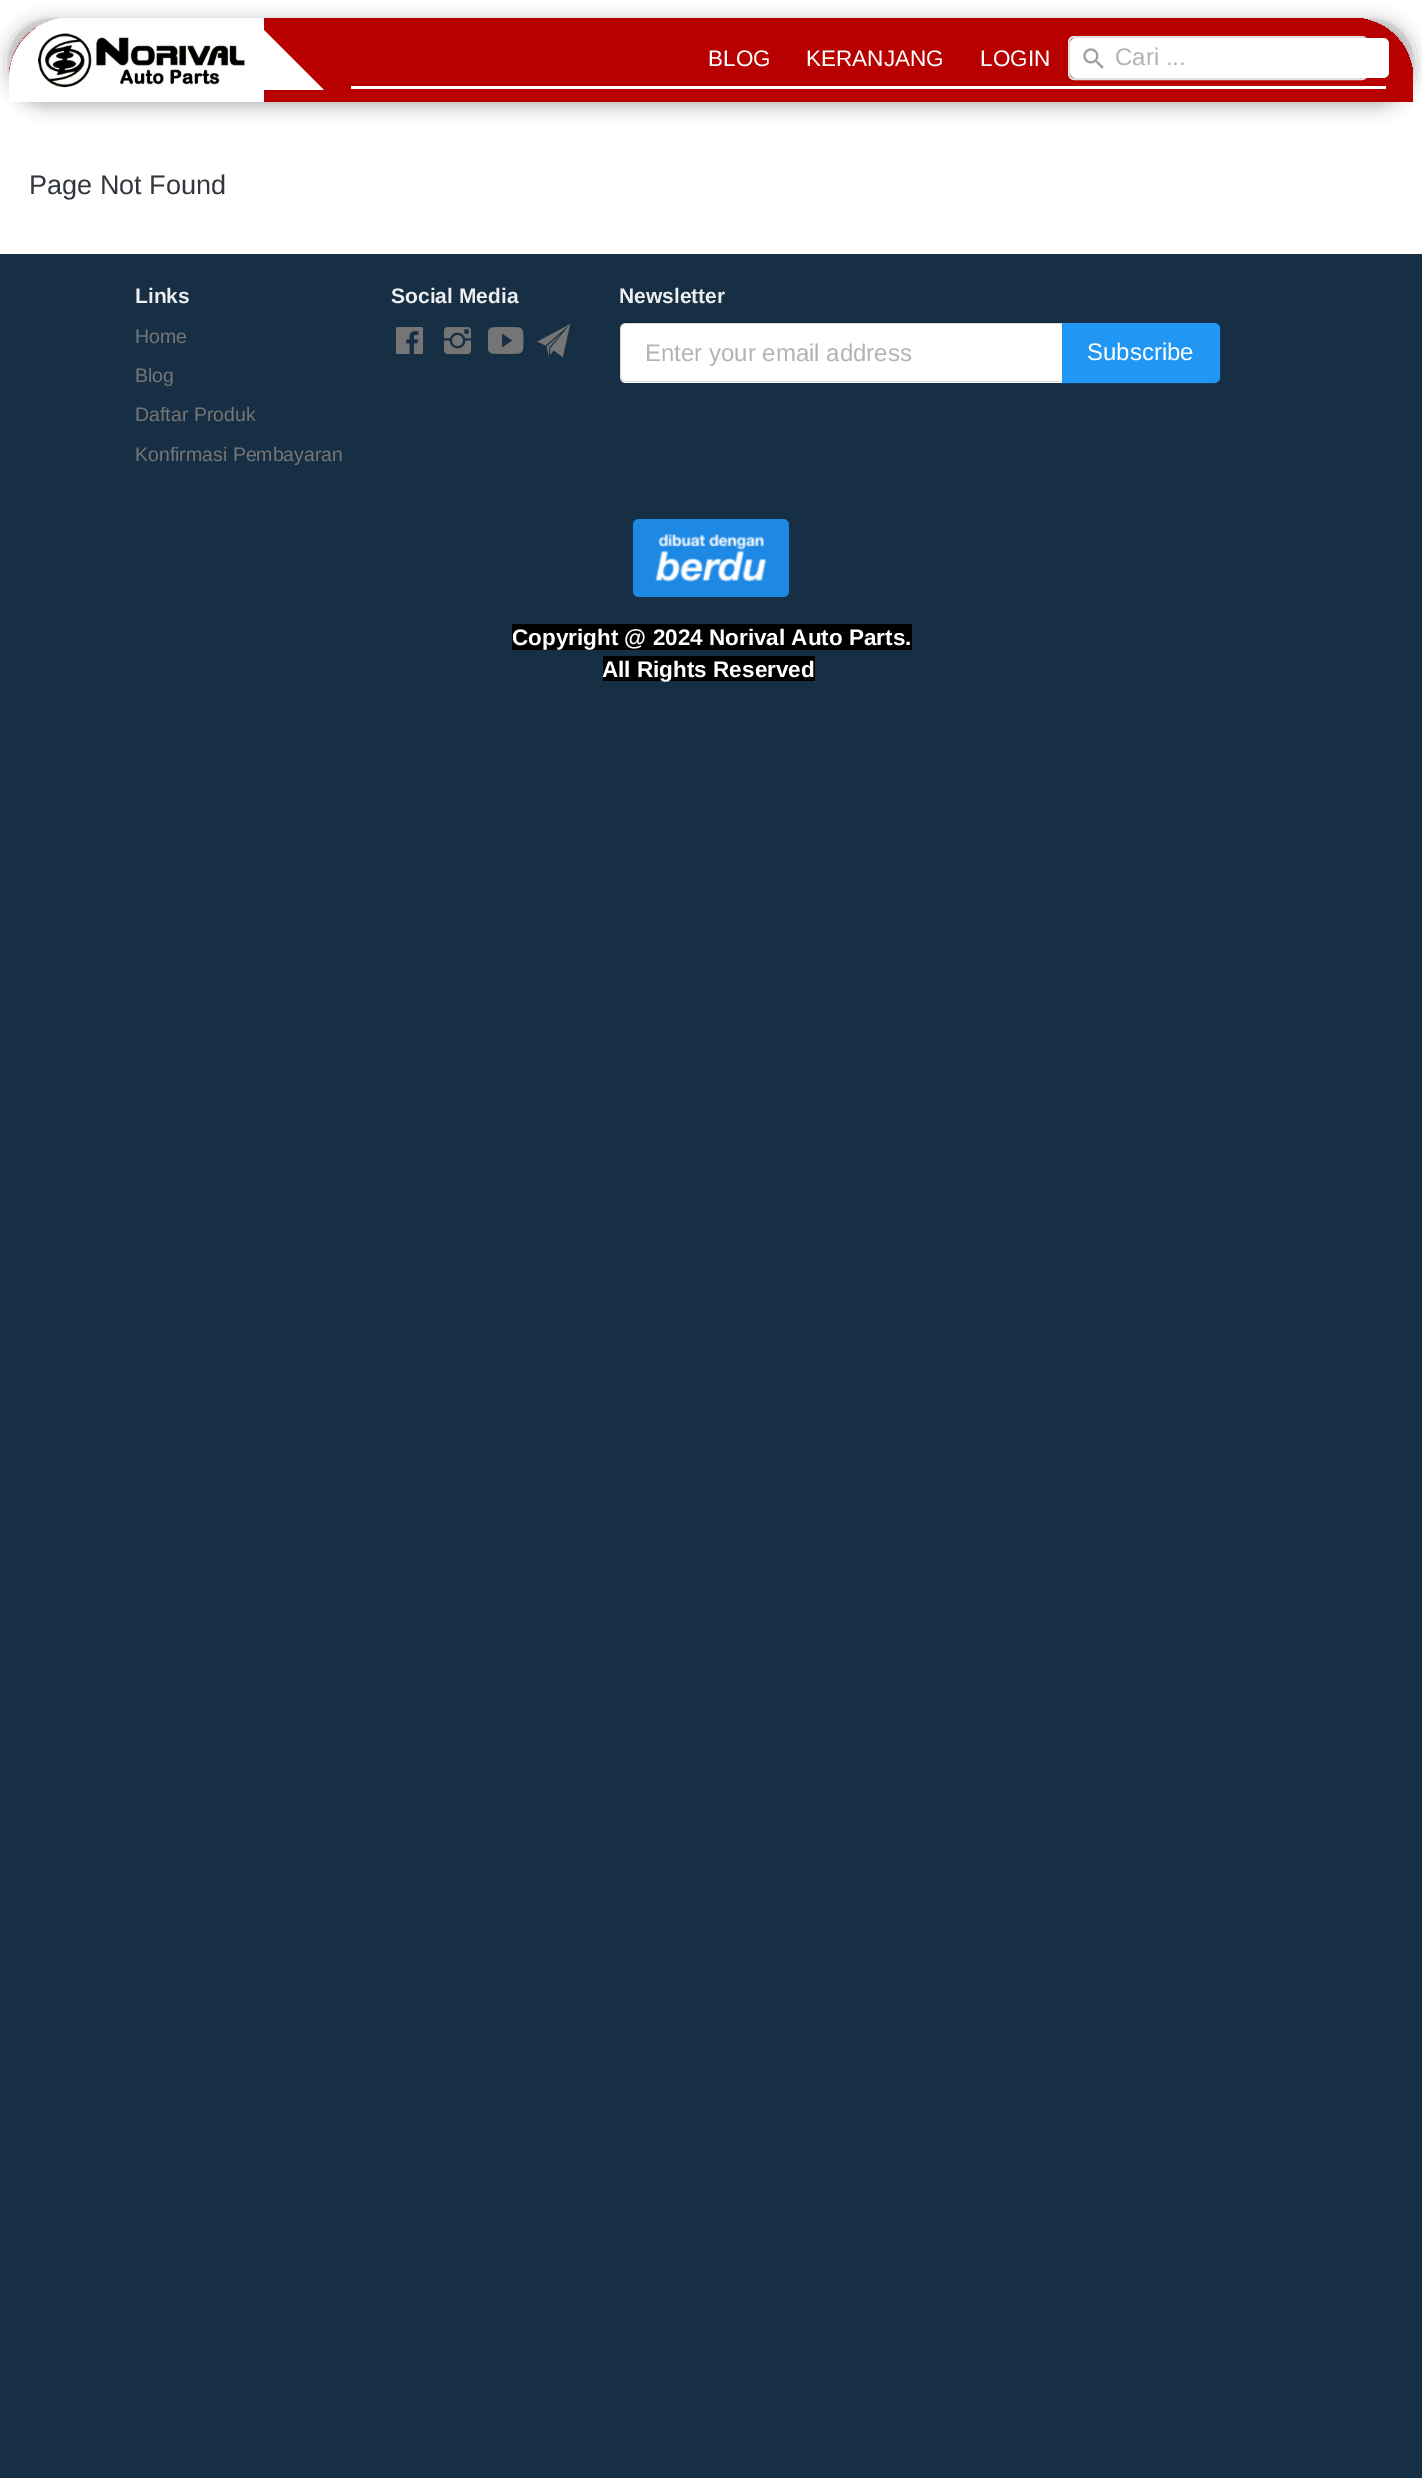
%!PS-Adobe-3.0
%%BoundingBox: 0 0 1422 2478
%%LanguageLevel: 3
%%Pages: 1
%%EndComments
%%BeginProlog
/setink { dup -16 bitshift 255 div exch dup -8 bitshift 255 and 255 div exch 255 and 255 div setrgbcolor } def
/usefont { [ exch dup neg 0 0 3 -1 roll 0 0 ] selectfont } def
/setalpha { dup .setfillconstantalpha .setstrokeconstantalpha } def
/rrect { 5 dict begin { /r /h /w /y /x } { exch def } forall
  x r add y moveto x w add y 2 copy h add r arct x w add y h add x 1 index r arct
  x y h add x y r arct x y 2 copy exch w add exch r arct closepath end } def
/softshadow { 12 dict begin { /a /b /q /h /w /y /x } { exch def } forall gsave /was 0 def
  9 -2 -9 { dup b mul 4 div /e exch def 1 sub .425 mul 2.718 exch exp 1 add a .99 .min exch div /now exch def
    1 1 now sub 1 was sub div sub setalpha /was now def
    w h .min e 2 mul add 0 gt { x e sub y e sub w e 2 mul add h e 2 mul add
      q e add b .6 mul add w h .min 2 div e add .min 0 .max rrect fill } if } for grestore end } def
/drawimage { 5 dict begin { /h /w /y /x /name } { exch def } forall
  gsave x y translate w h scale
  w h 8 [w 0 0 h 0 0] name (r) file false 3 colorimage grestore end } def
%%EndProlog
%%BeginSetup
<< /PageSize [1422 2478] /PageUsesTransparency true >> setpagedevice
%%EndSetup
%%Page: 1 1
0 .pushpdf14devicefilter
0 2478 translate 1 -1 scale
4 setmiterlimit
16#FFFFFF setink
0 0 1422 2478 rectfill
16#000000 setink
9 21 1404 84 60 9 0.16 softshadow
9 23 1404 84 60 9 0.16 softshadow
9 18 1404 84 60 0.5 0.06 softshadow
gsave
69 18 moveto 1353 18 lineto 1386 18 1413 45 1413 78 curveto 1413 102 lineto 9 102 lineto 9 78 lineto 9 45 36 18 69 18 curveto closepath clip newpath
16#B90000 setink
9 18 1404 84 rectfill
grestore
16#FFFFFF setink
36 28 moveto 20 39 9 57 9 78 curveto 9 102 lineto 36 102 lineto closepath fill
gsave
69 18 moveto 1353 18 lineto 1386 18 1413 45 1413 78 curveto 1413 102 lineto 9 102 lineto 9 78 lineto 9 45 36 18 69 18 curveto closepath clip newpath
36 18 228 84 rectfill
grestore
(img1.raw) 38 32 208 56 drawimage
264 30 moveto 324 90 lineto 264 90 lineto closepath fill
/LiberationSans-Regular 22.5 usefont
[
    [(BLOG) 708 66]
    [(KERANJANG) 806 66]
    [(LOGIN) 980 66]
] { aload pop moveto show } forall
16#E0E0E0 setink
2 setlinewidth
1069 37 298 42 5 rrect stroke
16#FFFFFF setink
1070 38 319 40 6 rrect fill
(img2.raw) 1083 48 21 21 drawimage
/LiberationSans-Regular 24 usefont
16#B3B3B3 setink
1115 65 moveto (Cari ...) show
16#FFFFFF setink
351 86 1035 3 rectfill
/LiberationSans-Regular 27 usefont
16#31373D setink
29 194 moveto (Page Not Found) show
16#162F45 setink
0 254 1422 2224 rectfill
/LiberationSans-Bold 21 usefont
16#EEEEEE setink
135 303 moveto (Links) show
/LiberationSans-Regular 19.5 usefont
16#757575 setink
[
    [(Home) 135 343]
    [(Blog) 135 382]
    [(Daftar Produk) 135 421]
    [(Konfirmasi Pembayaran) 135 461]
] { aload pop moveto show } forall
/LiberationSans-Bold 21 usefont
16#EEEEEE setink
391 303 moveto (Social Media) show
(img3.raw) 396 327 27 27 drawimage
(img4.raw) 444 327 27 28 drawimage
(img5.raw) 488 327 36 27 drawimage
(img6.raw) 537 324 34 33 drawimage
619 303 moveto (Newsletter) show
16#FFFFFF setink
626 323 moveto 1062 323 lineto 1062 383 lineto 626 383 lineto 622.5 383 620 380.5 620 377 curveto 620 329 lineto 620 325.5 622.5 323 626 323 curveto closepath fill
0.15 setalpha
16#000000 setink
626 322 moveto 1062 322 lineto 1062 382 lineto 626 382 lineto 622 382 620 380 620 376 curveto 620 328 lineto 620 325 622 322 626 322 curveto closepath 626 324 moveto 1062 324 lineto 1062 381 lineto 626 381 lineto 623 381 621 379 621 376 curveto 621 328 lineto 621 326 623 324 626 324 curveto closepath eofill
/LiberationSans-Regular 24 usefont
1 setalpha
16#B3B3B3 setink
645 361 moveto (Enter your email address) show
16#2196F3 setink
1062 323 moveto 1214 323 lineto 1217.5 323 1220 325.5 1220 329 curveto 1220 377 lineto 1220 380.5 1217.5 383 1214 383 curveto 1062 383 lineto closepath fill
0.5 setalpha
1063 324 moveto 1214 324 lineto 1217 324 1219 326 1219 329 curveto 1219 377 lineto 1219 380 1217 382 1214 382 curveto 1063 382 lineto closepath stroke
1 setalpha
16#FFFFFF setink
1087 360 moveto (Subscribe) show
16#1E88E5 setink
633 519 156 78 6 rrect fill
(img7.raw) 655 533 112 49 drawimage
16#000000 setink
512 624 400 26 rectfill
/LiberationSans-Bold 22.5 usefont
16#FFFFFF setink
512 645 moveto (Copyright @ 2024 Norival Auto Parts.) show
16#000000 setink
603 656 212 25 rectfill
16#FFFFFF setink
602 677 moveto (All Rights Reserved) show
.poppdf14devicefilter showpage
%%EOF
